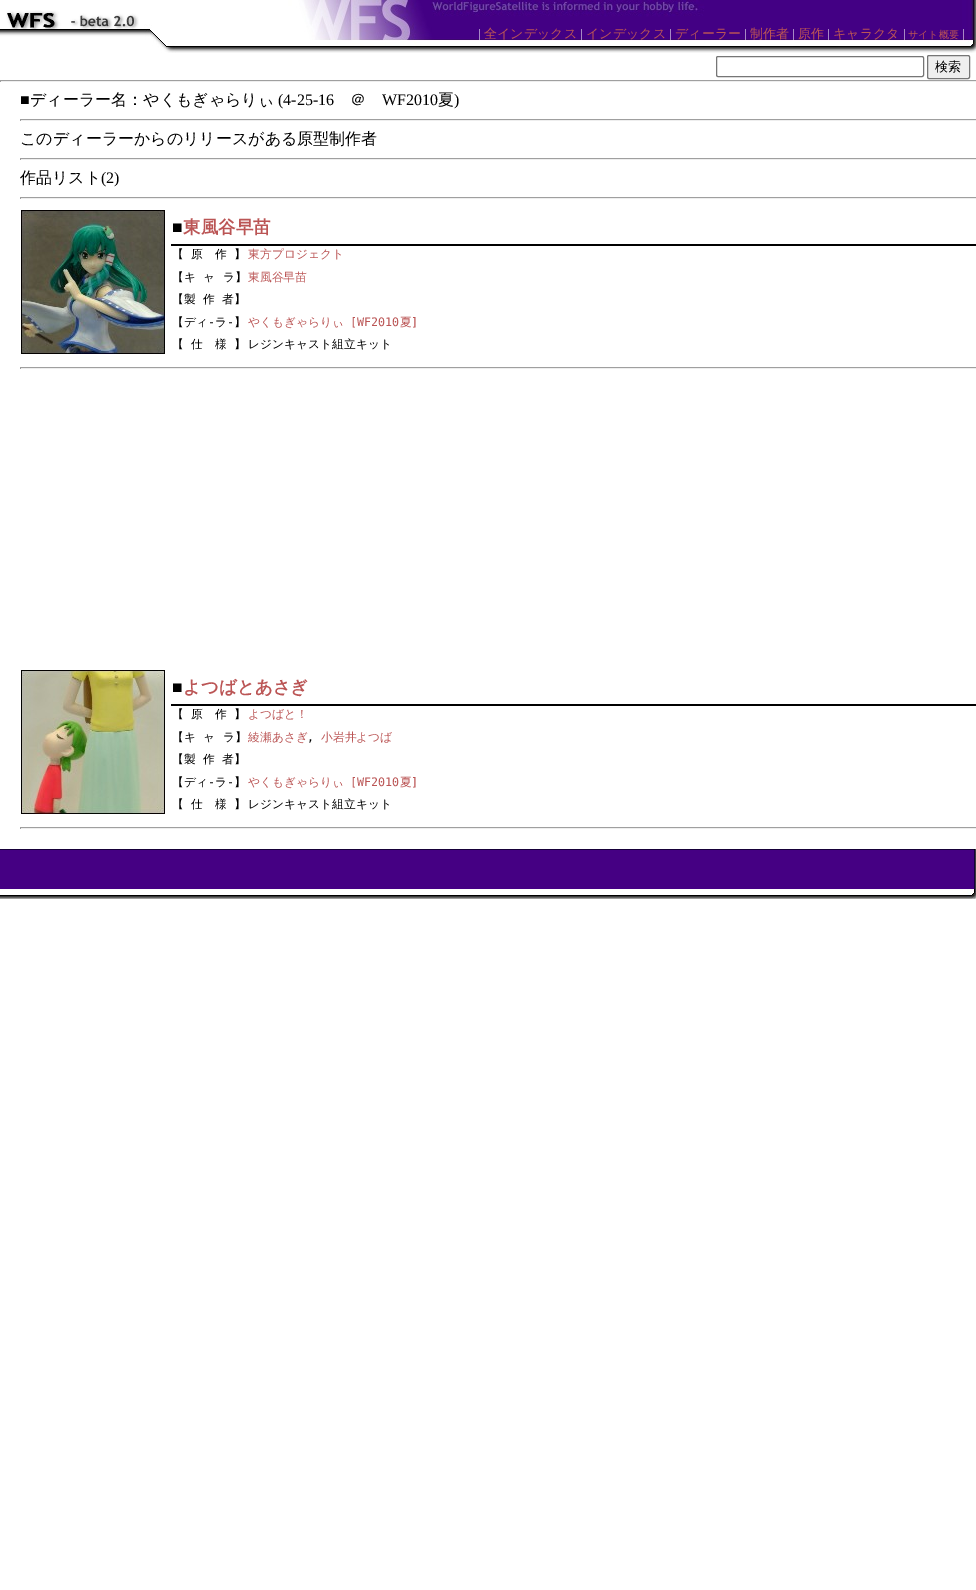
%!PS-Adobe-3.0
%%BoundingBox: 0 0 976 1590
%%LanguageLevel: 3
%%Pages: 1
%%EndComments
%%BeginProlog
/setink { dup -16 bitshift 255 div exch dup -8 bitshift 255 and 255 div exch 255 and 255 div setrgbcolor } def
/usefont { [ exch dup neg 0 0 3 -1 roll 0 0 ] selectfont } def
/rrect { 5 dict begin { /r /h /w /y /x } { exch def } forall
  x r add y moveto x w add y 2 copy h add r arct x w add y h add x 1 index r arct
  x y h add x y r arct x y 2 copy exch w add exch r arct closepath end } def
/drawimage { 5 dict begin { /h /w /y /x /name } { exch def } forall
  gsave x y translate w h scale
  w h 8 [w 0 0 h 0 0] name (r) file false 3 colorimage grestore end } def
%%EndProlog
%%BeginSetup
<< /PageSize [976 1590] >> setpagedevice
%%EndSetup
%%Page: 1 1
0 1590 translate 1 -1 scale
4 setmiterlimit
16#FFFFFF setink
0 0 976 1590 rectfill
(img1.raw) 0 0 976 53 drawimage
(img2.raw) 6 10 133 19 drawimage
/LiberationSerif-Regular 13 usefont
478 38 moveto (|) show
/WenQuanYiZenHei-Medium 13 usefont
16#BB5555 setink
484 38 moveto (全インデックス) show
/LiberationSerif-Regular 13 usefont
16#FFFFFF setink
580 38 moveto (|) show
/WenQuanYiZenHei-Medium 13 usefont
16#BB5555 setink
586 38 moveto (インデックス) show
/LiberationSerif-Regular 13 usefont
16#FFFFFF setink
669 38 moveto (|) show
/WenQuanYiZenHei-Medium 13 usefont
16#BB5555 setink
675 38 moveto (ディーラー) show
/LiberationSerif-Regular 13 usefont
16#FFFFFF setink
744 38 moveto (|) show
/WenQuanYiZenHei-Medium 13 usefont
16#BB5555 setink
750 38 moveto (制作者) show
/LiberationSerif-Regular 13 usefont
16#FFFFFF setink
792 38 moveto (|) show
/WenQuanYiZenHei-Medium 13 usefont
16#BB5555 setink
798 38 moveto (原作) show
/LiberationSerif-Regular 13 usefont
16#FFFFFF setink
827 38 moveto (|) show
/WenQuanYiZenHei-Medium 13 usefont
16#BB5555 setink
833 38 moveto (キャラクタ) show
/LiberationSerif-Regular 13 usefont
16#FFFFFF setink
903 38 moveto (|) show
/WenQuanYiZenHei-Medium 10 usefont
16#BB5555 setink
908 38 moveto (サイト概要) show
/LiberationSerif-Regular 13 usefont
16#FFFFFF setink
962 38 moveto (|) show
16#767676 setink
716.5 56.5 207 20 1.5 rrect stroke
16#EFEFEF setink
927.5 55.5 42 23 1.5 rrect gsave fill grestore
16#767676 setink
stroke
/WenQuanYiZenHei-Medium 13 usefont
16#000000 setink
935 71 moveto (検索) show
[
    [0 80 976 1 16#9F9F9F]
    [0 81 976 1 16#EEEEEE]
    [0 80 1 2 16#9F9F9F]
] { aload pop setink rectfill } forall
/LiberationSerif-Regular 16 usefont
16#000000 setink
20 105 moveto (■) show
/WenQuanYiZenHei-Medium 16 usefont
30 105 moveto (ディーラー名：やくもぎゃらりぃ) show
/LiberationSerif-Regular 16 usefont
278 105 moveto (\(4-25-16) show
/WenQuanYiZenHei-Medium 16 usefont
350 105 moveto (＠) show
/LiberationSerif-Regular 16 usefont
382 105 moveto (WF2010) show
/WenQuanYiZenHei-Medium 16 usefont
438 105 moveto (夏) show
/LiberationSerif-Regular 16 usefont
454 105 moveto (\)) show
[
    [20 119 956 1 16#9F9F9F]
    [20 120 956 1 16#EEEEEE]
    [20 119 1 2 16#9F9F9F]
] { aload pop setink rectfill } forall
/WenQuanYiZenHei-Medium 16 usefont
16#000000 setink
20 144 moveto (このディーラーからのリリースがある原型制作者) show
[
    [20 158 956 1 16#9F9F9F]
    [20 159 956 1 16#EEEEEE]
    [20 158 1 2 16#9F9F9F]
] { aload pop setink rectfill } forall
16#000000 setink
20 183 moveto (作品リスト) show
/LiberationSerif-Regular 16 usefont
101 183 moveto (\(2\)) show
[
    [20 197 956 1 16#9F9F9F]
    [20 198 956 1 16#EEEEEE]
    [20 197 1 2 16#9F9F9F]
] { aload pop setink rectfill } forall
(img3.raw) 21 210 144 144 drawimage
16#000000 setink
171 244 805 2 rectfill
/LiberationSerif-Regular 17.5 usefont
172 233 moveto (■) show
/WenQuanYiZenHei-Bold 17.5 usefont
16#BB5555 setink
183 233 moveto (東風谷早苗) show
/WenQuanYiZenHei-Medium 11.75 usefont
16#000000 setink
172 258 moveto 4 0 32 (【 原　作 】) widthshow
16#BB5555 setink
248 258 moveto (東方プロジェクト) show
16#000000 setink
172 281 moveto 4 0 32 (【キ ャ ラ】) widthshow
16#BB5555 setink
248 281 moveto (東風谷早苗) show
16#000000 setink
172 303 moveto 4 0 32 (【製 作 者】) widthshow
172 326 moveto (【ディ) show
/DejaVuSansMono-Regular 11.75 usefont
208 326 moveto (-) show
/WenQuanYiZenHei-Medium 11.75 usefont
215 326 moveto (ラ) show
/DejaVuSansMono-Regular 11.75 usefont
227 326 moveto (-) show
/WenQuanYiZenHei-Medium 11.75 usefont
234 326 moveto (】) show
16#BB5555 setink
248 326 moveto (やくもぎゃらりぃ) show
/DejaVuSansMono-Regular 11.75 usefont
350 326 moveto ([WF2010) show
/WenQuanYiZenHei-Medium 11.75 usefont
400 326 moveto (夏) show
/DejaVuSansMono-Regular 11.75 usefont
411 326 moveto (]) show
/WenQuanYiZenHei-Medium 11.75 usefont
16#000000 setink
172 348 moveto 4 0 32 (【 仕　様 】) widthshow
248 348 moveto (レジンキャスト組立キット) show
[
    [20 367 956 1 16#9F9F9F]
    [20 368 956 1 16#EEEEEE]
    [20 367 1 2 16#9F9F9F]
] { aload pop setink rectfill } forall
(img4.raw) 21 670 144 144 drawimage
16#000000 setink
171 704 805 2 rectfill
/LiberationSerif-Regular 17.5 usefont
172 693 moveto (■) show
/WenQuanYiZenHei-Bold 17.5 usefont
16#BB5555 setink
183 693 moveto (よつばとあさぎ) show
/WenQuanYiZenHei-Medium 11.75 usefont
16#000000 setink
172 718 moveto 4 0 32 (【 原　作 】) widthshow
16#BB5555 setink
248 718 moveto (よつばと！) show
16#000000 setink
172 741 moveto 4 0 32 (【キ ャ ラ】) widthshow
16#BB5555 setink
248 741 moveto (綾瀬あさぎ) show
/DejaVuSansMono-Regular 11.75 usefont
16#000000 setink
307 741 moveto (,) show
/WenQuanYiZenHei-Medium 11.75 usefont
16#BB5555 setink
321 741 moveto (小岩井よつば) show
16#000000 setink
172 763 moveto 4 0 32 (【製 作 者】) widthshow
172 786 moveto (【ディ) show
/DejaVuSansMono-Regular 11.75 usefont
208 786 moveto (-) show
/WenQuanYiZenHei-Medium 11.75 usefont
215 786 moveto (ラ) show
/DejaVuSansMono-Regular 11.75 usefont
227 786 moveto (-) show
/WenQuanYiZenHei-Medium 11.75 usefont
234 786 moveto (】) show
16#BB5555 setink
248 786 moveto (やくもぎゃらりぃ) show
/DejaVuSansMono-Regular 11.75 usefont
350 786 moveto ([WF2010) show
/WenQuanYiZenHei-Medium 11.75 usefont
400 786 moveto (夏) show
/DejaVuSansMono-Regular 11.75 usefont
411 786 moveto (]) show
/WenQuanYiZenHei-Medium 11.75 usefont
16#000000 setink
172 808 moveto 4 0 32 (【 仕　様 】) widthshow
248 808 moveto (レジンキャスト組立キット) show
[
    [20 827 956 1 16#9F9F9F]
    [20 828 956 1 16#EEEEEE]
    [20 827 1 2 16#9F9F9F]
] { aload pop setink rectfill } forall
(img5.raw) 0 849 976 50 drawimage
showpage
%%EOF
